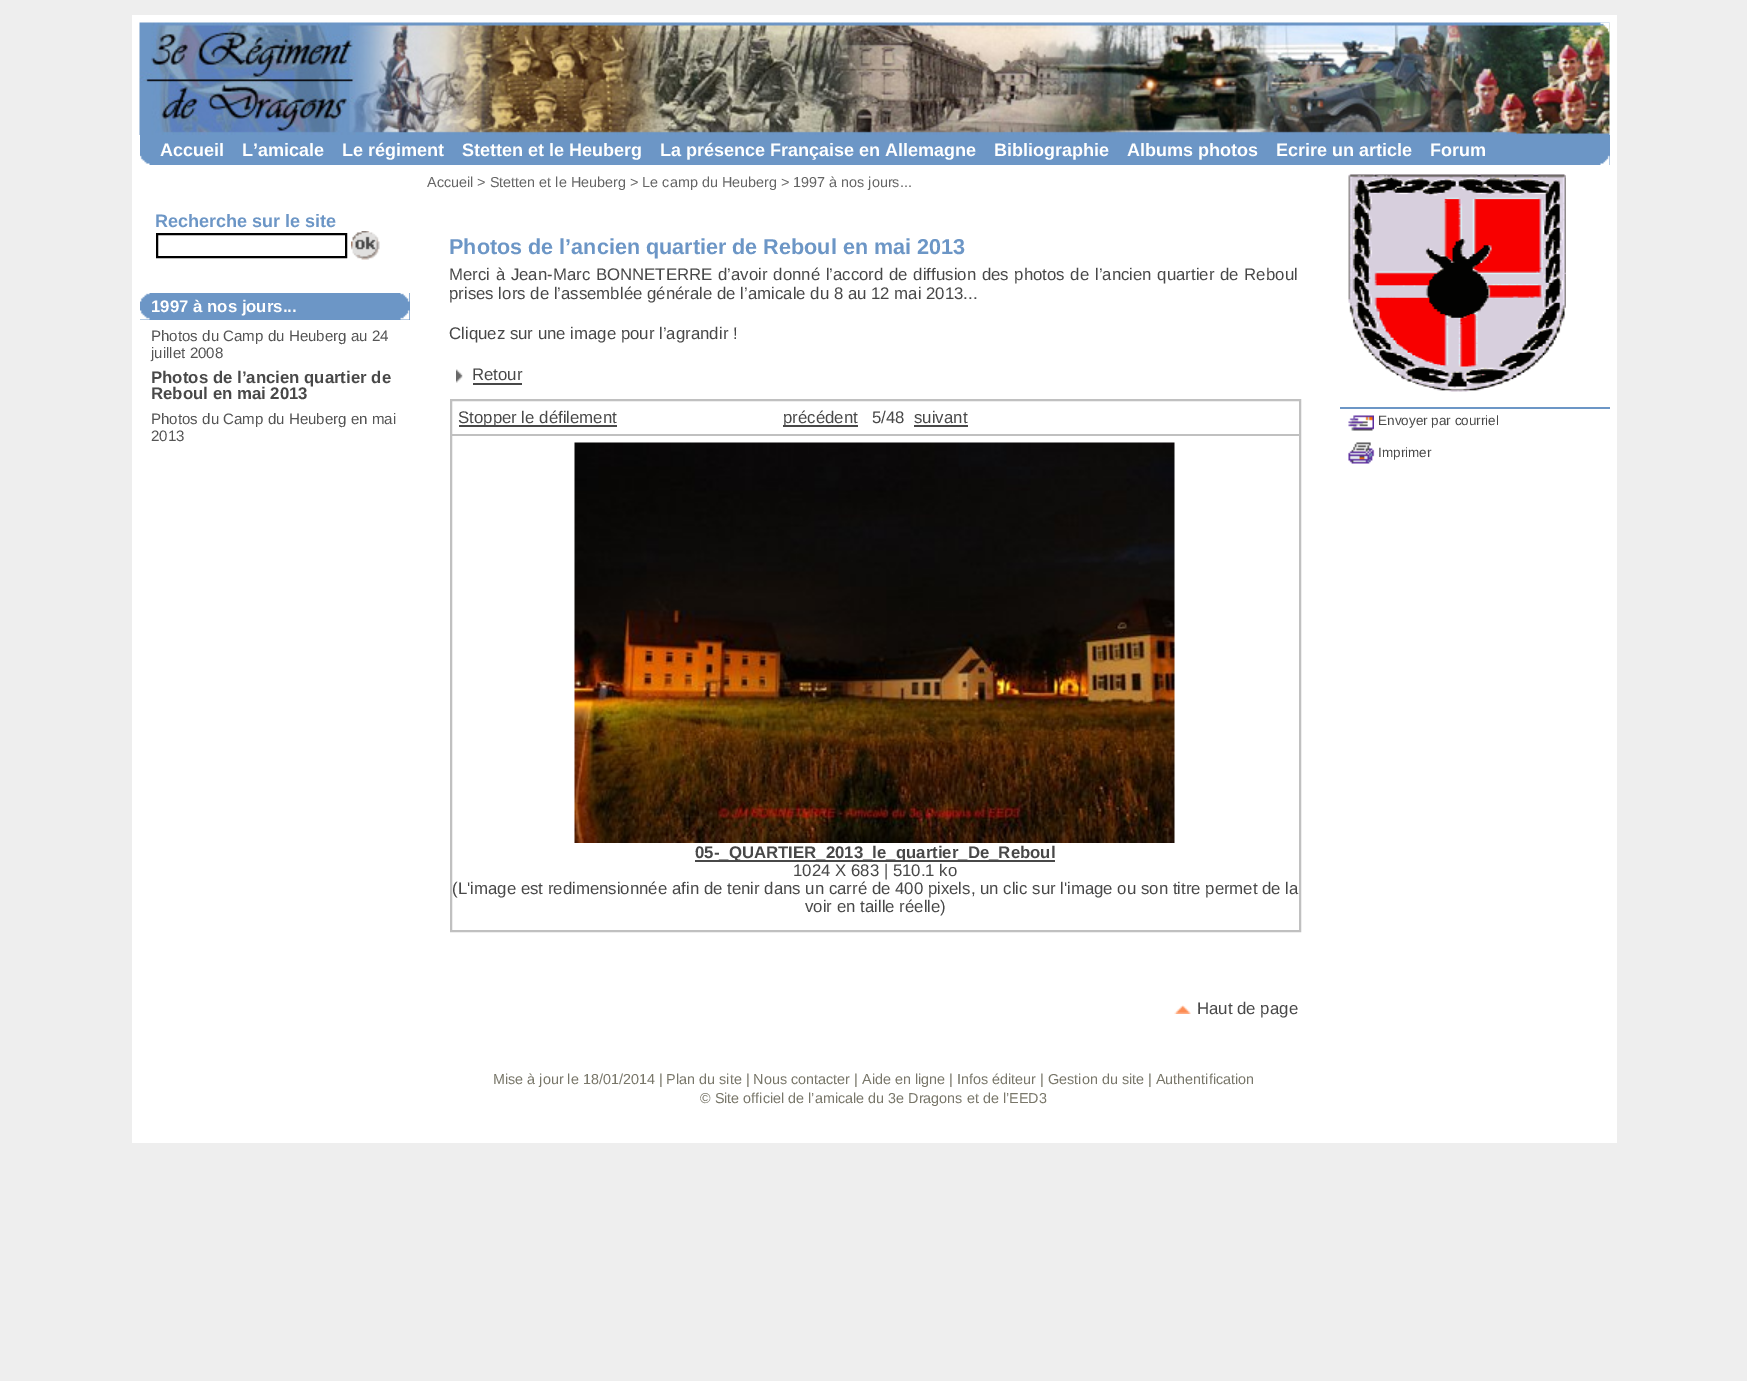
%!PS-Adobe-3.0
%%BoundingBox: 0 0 1747 1381
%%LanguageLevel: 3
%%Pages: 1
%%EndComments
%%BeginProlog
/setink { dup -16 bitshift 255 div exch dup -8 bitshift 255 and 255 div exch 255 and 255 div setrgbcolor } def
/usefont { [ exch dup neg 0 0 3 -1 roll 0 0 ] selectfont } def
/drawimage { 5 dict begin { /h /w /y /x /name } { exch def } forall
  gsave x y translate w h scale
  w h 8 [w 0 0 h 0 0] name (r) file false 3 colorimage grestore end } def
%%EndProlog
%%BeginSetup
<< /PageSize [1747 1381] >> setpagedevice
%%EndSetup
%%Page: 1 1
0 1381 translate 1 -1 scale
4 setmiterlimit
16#EEEEEE setink
0 0 1747 1381 rectfill
16#FFFFFF setink
132 15 1485 1128 rectfill
(img1.raw) 139 22 1471 113 drawimage
(img2.raw) 1600 22 10 10 drawimage
16#6C96C6 setink
140 135 1470 30 rectfill
(img3.raw) 140 155 10 10 drawimage
(img4.raw) 1600 155 10 10 drawimage
/LiberationSans-Bold 18 usefont
16#FFFFFF setink
[
    [(Accueil) 160 156]
    [(L’amicale) 242 156]
    [(Le régiment) 342 156]
    [(Stetten et le Heuberg) 462 156]
    [(La présence Française en Allemagne) 660 156]
    [(Bibliographie) 994 156]
    [(Albums photos) 1127 156]
    [(Ecrire un article) 1276 156]
    [(Forum) 1430 156]
] { aload pop moveto show } forall
16#6C96C6 setink
155 227 moveto (Recherche sur le site) show
16#000000 setink
2 setlinewidth
157 234 189 23 rectstroke
(img5.raw) 351 231 29 29 drawimage
16#6C96C6 setink
140 293 270 27 rectfill
(img6.raw) 140 310 10 10 drawimage
(img7.raw) 400 310 10 10 drawimage
(img8.raw) 140 293 10 9 drawimage
(img9.raw) 400 293 10 9 drawimage
/LiberationSans-Bold 16.8 usefont
16#FFFFFF setink
151 312 moveto (1997 à nos jours...) show
/LiberationSans-Regular 15.1 usefont
16#555555 setink
151 341 moveto (Photos du Camp du Heuberg au 24) show
151 358 moveto (juillet 2008) show
/LiberationSans-Bold 16.8 usefont
16#484848 setink
151 383 moveto (Photos de l’ancien quartier de) show
151 399 moveto (Reboul en mai 2013) show
/LiberationSans-Regular 15.1 usefont
16#555555 setink
151 424 moveto (Photos du Camp du Heuberg en mai) show
151 441 moveto (2013) show
/LiberationSans-Regular 14.4 usefont
16#656565 setink
427 187 moveto (Accueil > Stetten et le Heuberg > Le camp du Heuberg > 1997 à nos jours...) show
/LiberationSans-Bold 21.6 usefont
16#6C96C6 setink
449 254 moveto (Photos de l’ancien quartier de Reboul en mai 2013) show
/LiberationSans-Regular 16.8 usefont
16#484848 setink
449 280 moveto 1 0 32 (Merci à Jean-Marc BONNETERRE d’avoir donné l’accord de diffusion des photos de l’ancien quartier de Reboul) widthshow
449 299 moveto (prises lors de l’assemblée générale de l’amicale du 8 au 12 mai 2013...) show
449 339 moveto (Cliquez sur une image pour l’agrandir !) show
(img10.raw) 456 369 7 14 drawimage
472 380 moveto (Retour) show
473 383 49 2 rectfill
16#C0C0C0 setink
451 400 849 531 rectstroke
452 434 847 2 rectfill
16#484848 setink
459 425 158 2 rectfill
458 423 moveto (Stopper le défilement) show
783 425 75 2 rectfill
[
    [(précédent) 783 423]
    [(5/48) 872 423]
    [(suivant) 914 423]
] { aload pop moveto show } forall
914 425 54 2 rectfill
(img11.raw) 574 442 601 401 drawimage
695 860 360 2 rectfill
/LiberationSans-Bold 16.8 usefont
695 858 moveto (05-_QUARTIER_2013_le_quartier_De_Reboul) show
/LiberationSans-Regular 16.8 usefont
[
    [(1024 X 683 | 510.1 ko) 793 876]
    [(\(L'image est redimensionnée afin de tenir dans un carré de 400 pixels, un clic sur l'image ou son titre permet de la) 452 894]
    [(voir en taille réelle\)) 805 912]
] { aload pop moveto show } forall
(img12.raw) 1174 1005 17 9 drawimage
1197 1014 moveto (Haut de page) show
(img13.raw) 1348 174 218 218 drawimage
16#6C96C6 setink
1340 407 270 2 rectfill
(img14.raw) 1348 415 26 16 drawimage
/LiberationSans-Regular 13.5 usefont
16#484848 setink
1378 425 moveto (Envoyer par courriel) show
(img15.raw) 1348 442 27 22 drawimage
1378 457 moveto (Imprimer) show
/LiberationSans-Regular 14.4 usefont
16#787669 setink
493 1084 moveto (Mise à jour le 18/01/2014 | Plan du site | Nous contacter | Aide en ligne | Infos éditeur | Gestion du site | Authentification) show
700 1103 moveto (© Site officiel de l’amicale du 3e Dragons et de l’EED3) show
showpage
%%EOF
